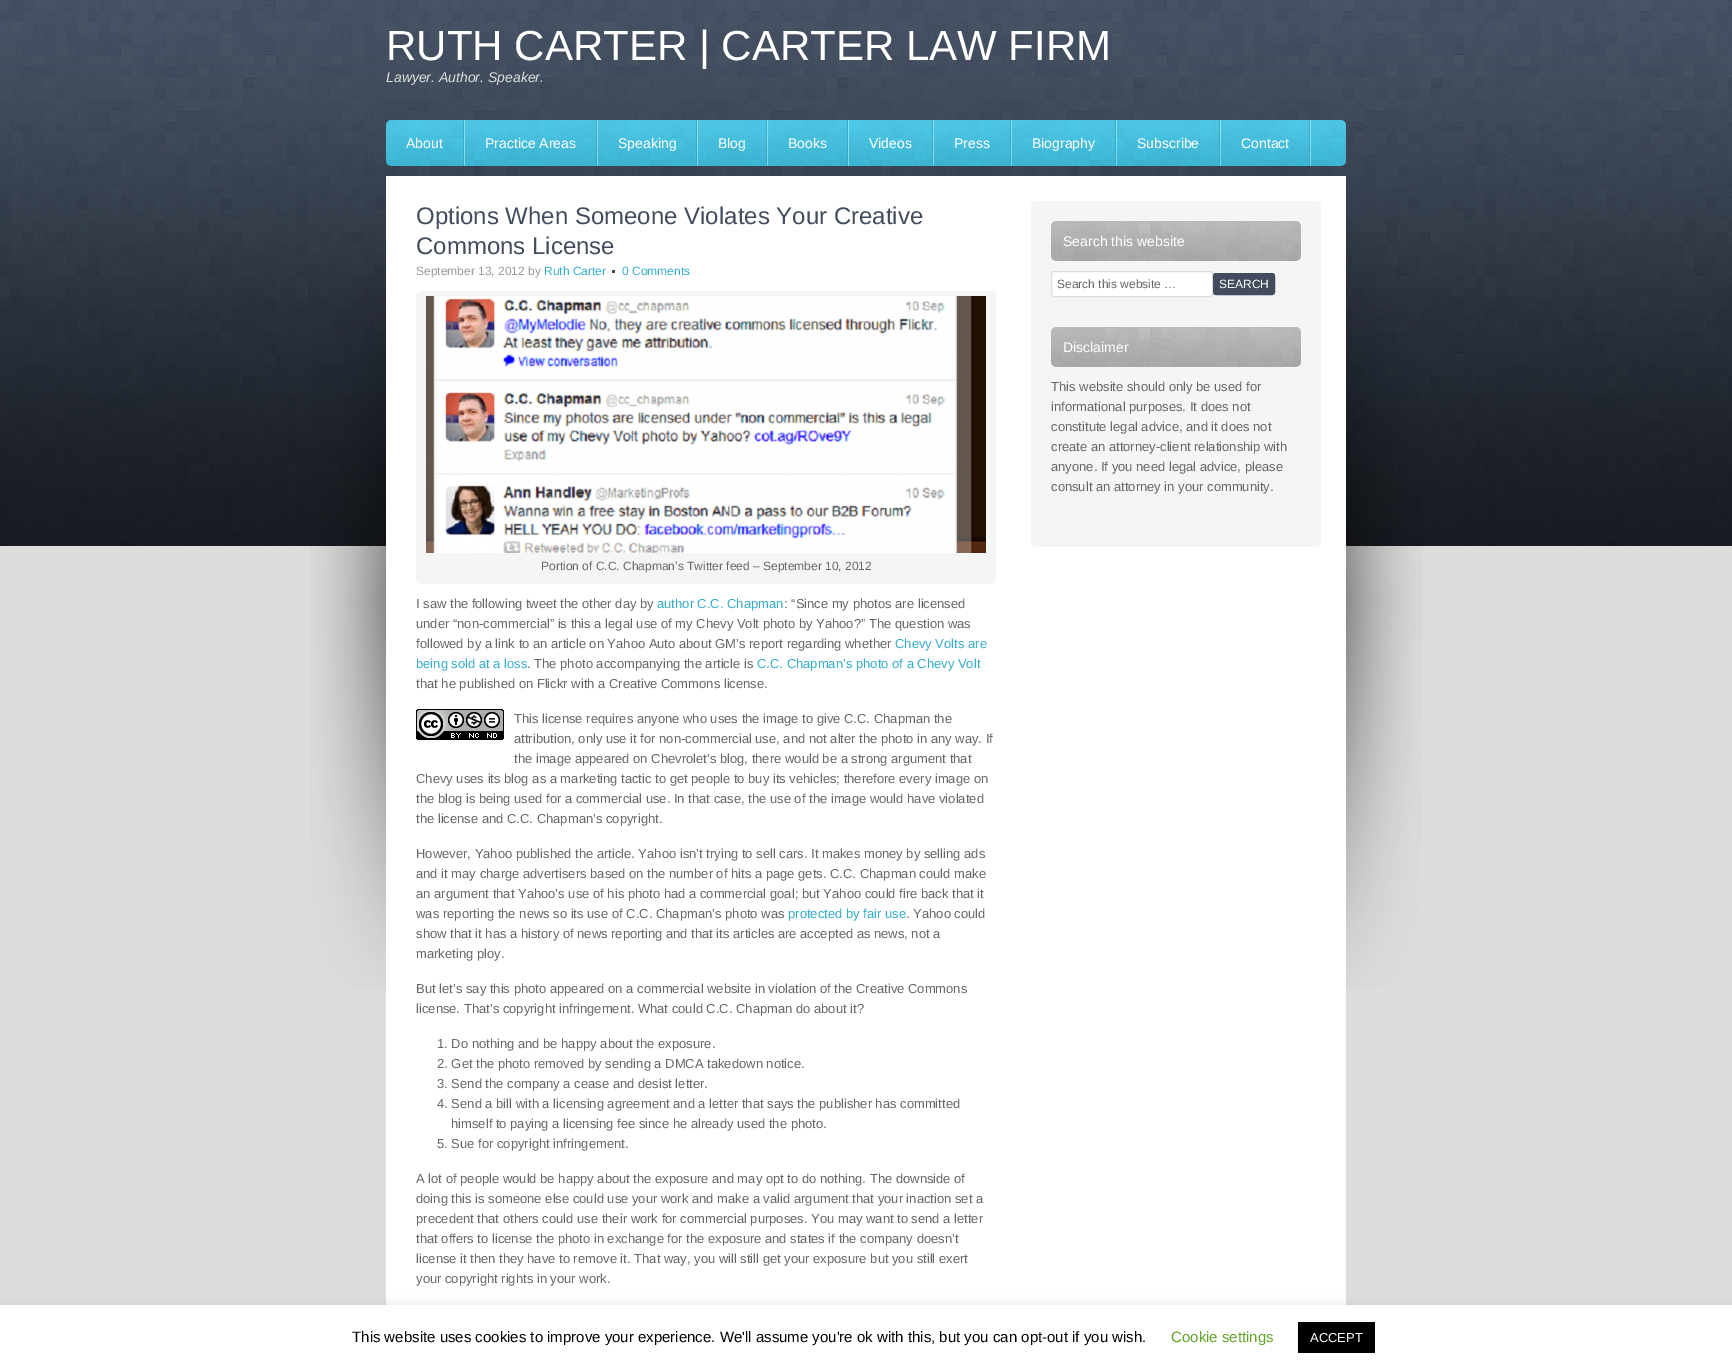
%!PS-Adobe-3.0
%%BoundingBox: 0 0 1732 1370
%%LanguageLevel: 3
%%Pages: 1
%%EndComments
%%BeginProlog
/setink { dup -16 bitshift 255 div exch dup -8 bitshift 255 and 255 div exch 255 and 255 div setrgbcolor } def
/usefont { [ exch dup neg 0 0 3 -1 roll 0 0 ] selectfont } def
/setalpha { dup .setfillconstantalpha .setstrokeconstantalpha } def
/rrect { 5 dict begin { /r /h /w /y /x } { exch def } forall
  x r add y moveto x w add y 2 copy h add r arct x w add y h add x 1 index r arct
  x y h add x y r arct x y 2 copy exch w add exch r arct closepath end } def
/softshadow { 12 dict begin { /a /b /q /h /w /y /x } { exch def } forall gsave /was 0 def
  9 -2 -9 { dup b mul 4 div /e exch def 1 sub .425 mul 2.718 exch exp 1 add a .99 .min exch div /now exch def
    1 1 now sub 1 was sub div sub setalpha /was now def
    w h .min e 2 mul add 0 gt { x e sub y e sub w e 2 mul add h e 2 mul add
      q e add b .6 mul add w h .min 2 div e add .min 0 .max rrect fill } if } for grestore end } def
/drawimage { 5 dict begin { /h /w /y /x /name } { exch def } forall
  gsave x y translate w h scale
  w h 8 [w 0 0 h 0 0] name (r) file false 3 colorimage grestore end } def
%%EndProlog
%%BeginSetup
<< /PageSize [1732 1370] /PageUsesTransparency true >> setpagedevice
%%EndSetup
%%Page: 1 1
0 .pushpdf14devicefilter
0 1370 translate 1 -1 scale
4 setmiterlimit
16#DDDDDD setink
0 0 1732 1370 rectfill
(img1.raw) 0 0 1732 546 drawimage
/LiberationSans-Regular 42 usefont
16#FFFFFF setink
386 60 moveto (RUTH CARTER | CARTER LAW FIRM) show
/LiberationSans-Italic 14 usefont
16#DDDDDD setink
386 82 moveto (Lawyer. Author. Speaker.) show
(img2.raw) 386 120 960 46 drawimage
(img3.raw) 463 120 2 46 drawimage
/LiberationSans-Regular 14 usefont
16#FFFFFF setink
406 148 moveto (About) show
(img3.raw) 596 120 2 46 drawimage
485 148 moveto (Practice Areas) show
(img3.raw) 696 120 2 46 drawimage
618 148 moveto (Speaking) show
(img3.raw) 766 120 2 46 drawimage
718 148 moveto (Blog) show
(img3.raw) 847 120 2 46 drawimage
788 148 moveto (Books) show
(img3.raw) 932 120 2 46 drawimage
869 148 moveto (Videos) show
(img3.raw) 1010 120 2 46 drawimage
954 148 moveto (Press) show
(img3.raw) 1115 120 2 46 drawimage
1032 148 moveto (Biography) show
(img3.raw) 1219 120 2 46 drawimage
1137 148 moveto (Subscribe) show
(img3.raw) 1309 120 2 46 drawimage
1241 148 moveto (Contact) show
(img4.raw) 310 230 1112 760 drawimage
386 176 960 1129 rectfill
/LiberationSans-Regular 24 usefont
16#424C5D setink
416 224 moveto (Options When Someone Violates Your Creative) show
416 254 moveto (Commons License) show
/LiberationSans-Regular 12 usefont
16#999999 setink
416 275 moveto (September 13, 2012 by) show
16#34ACCB setink
544 275 moveto (Ruth Carter) show
622 275 moveto (0 Comments) show
16#424C5D setink
612 270 3 3 rectfill
16#F5F5F5 setink
416 291 580 293 5 rrect fill
(img5.raw) 426 296 560 257 drawimage
16#666666 setink
541 570 moveto (Portion of C.C. Chapman’s Twitter feed – September 10, 2012) show
/LiberationSans-Regular 13 usefont
416 608 moveto (I saw the following tweet the other day by) show
16#34ACCB setink
657 608 moveto (author C.C. Chapman) show
16#666666 setink
[
    [(: “Since my photos are licensed) 784 608]
    [(under “non-commercial” is this a legal use of my Chevy Volt photo by Yahoo?” The question was) 416 628]
    [(followed by a link to an article on Yahoo Auto about GM’s report regarding whether) 416 648]
] { aload pop moveto show } forall
16#34ACCB setink
895 648 moveto (Chevy Volts are) show
416 668 moveto (being sold at a loss) show
16#666666 setink
527 668 moveto (. The photo accompanying the article is) show
16#34ACCB setink
757 668 moveto (C.C. Chapman’s photo of a Chevy Volt) show
16#666666 setink
416 688 moveto (that he published on Flickr with a Creative Commons license.) show
(img6.raw) 416 709 88 31 drawimage
[
    [(This license requires anyone who uses the image to give C.C. Chapman the) 514 723]
    [(attribution, only use it for non-commercial use, and not alter the photo in any way. If) 514 743]
    [(the image appeared on Chevrolet’s blog, there would be a strong argument that) 514 763]
    [(Chevy uses its blog as a marketing tactic to get people to buy its vehicles; therefore every image on) 416 783]
    [(the blog is being used for a commercial use. In that case, the use of the image would have violated) 416 803]
    [(the license and C.C. Chapman’s copyright.) 416 823]
    [(However, Yahoo published the article. Yahoo isn’t trying to sell cars. It makes money by selling ads) 416 858]
    [(and it may charge advertisers based on the number of hits a page gets. C.C. Chapman could make) 416 878]
    [(an argument that Yahoo’s use of his photo had a commercial goal; but Yahoo could fire back that it) 416 898]
    [(was reporting the news so its use of C.C. Chapman’s photo was) 416 918]
] { aload pop moveto show } forall
16#34ACCB setink
788 918 moveto (protected by fair use) show
16#666666 setink
[
    [(. Yahoo could) 906 918]
    [(show that it has a history of news reporting and that its articles are accepted as news, not a) 416 938]
    [(marketing ploy.) 416 958]
    [(But let’s say this photo appeared on a commercial website in violation of the Creative Commons) 416 993]
    [(license. That’s copyright infringement. What could C.C. Chapman do about it?) 416 1013]
    [(1. Do nothing and be happy about the exposure.) 437 1048]
    [(2. Get the photo removed by sending a DMCA takedown notice.) 437 1068]
    [(3. Send the company a cease and desist letter.) 437 1088]
    [(4. Send a bill with a licensing agreement and a letter that says the publisher has committed) 437 1108]
    [(himself to paying a licensing fee since he already used the photo.) 451 1128]
    [(5. Sue for copyright infringement.) 437 1148]
    [(A lot of people would be happy about the exposure and may opt to do nothing. The downside of) 416 1183]
    [(doing this is someone else could use your work and make a valid argument that your inaction set a) 416 1203]
    [(precedent that others could use their work for commercial purposes. You may want to send a letter) 416 1223]
    [(that offers to license the photo in exchange for the exposure and states if the company doesn’t) 416 1243]
    [(license it then they have to remove it. That way, you will still get your exposure but you still exert) 416 1263]
    [(your copyright rights in your work.) 416 1283]
] { aload pop moveto show } forall
16#F5F5F5 setink
1031 201 290 346 5 rrect fill
(img7.raw) 1051 221 250 40 drawimage
/LiberationSans-Regular 14 usefont
16#FFFFFF setink
1063 246 moveto (Search this website) show
1051.5 271.5 161 25 2.5 rrect gsave fill grestore
16#DDDDDD setink
stroke
/LiberationSans-Regular 12 usefont
16#666666 setink
1057 288 moveto (Search this website …) show
16#424C5D setink
1213.5 273.5 61 21 2.5 rrect gsave fill grestore
stroke
16#FFFFFF setink
1219 288 moveto (SEARCH) show
(img7.raw) 1051 327 250 40 drawimage
/LiberationSans-Regular 14 usefont
1063 352 moveto (Disclaimer) show
/LiberationSans-Regular 13 usefont
16#666666 setink
[
    [(This website should only be used for) 1051 391]
    [(informational purposes. It does not) 1051 411]
    [(constitute legal advice, and it does not) 1051 431]
    [(create an attorney-client relationship with) 1051 451]
    [(anyone. If you need legal advice, please) 1051 471]
    [(consult an attorney in your community.) 1051 491]
] { aload pop moveto show } forall
16#ACABAB setink
0 1304 1732 65 0 5 0.3 softshadow
16#FFFFFF setink
0 1305 1732 65 rectfill
/LiberationSans-Regular 15 usefont
16#000000 setink
352 1342 moveto (This website uses cookies to improve your experience. We'll assume you're ok with this, but you can opt-out if you wish.) show
16#62A329 setink
1171 1342 moveto (Cookie settings) show
16#000000 setink
1298 1322 77 31 rectfill
/LiberationSans-Regular 13 usefont
16#FFFFFF setink
1310 1342 moveto (ACCEPT) show
.poppdf14devicefilter showpage
%%EOF
